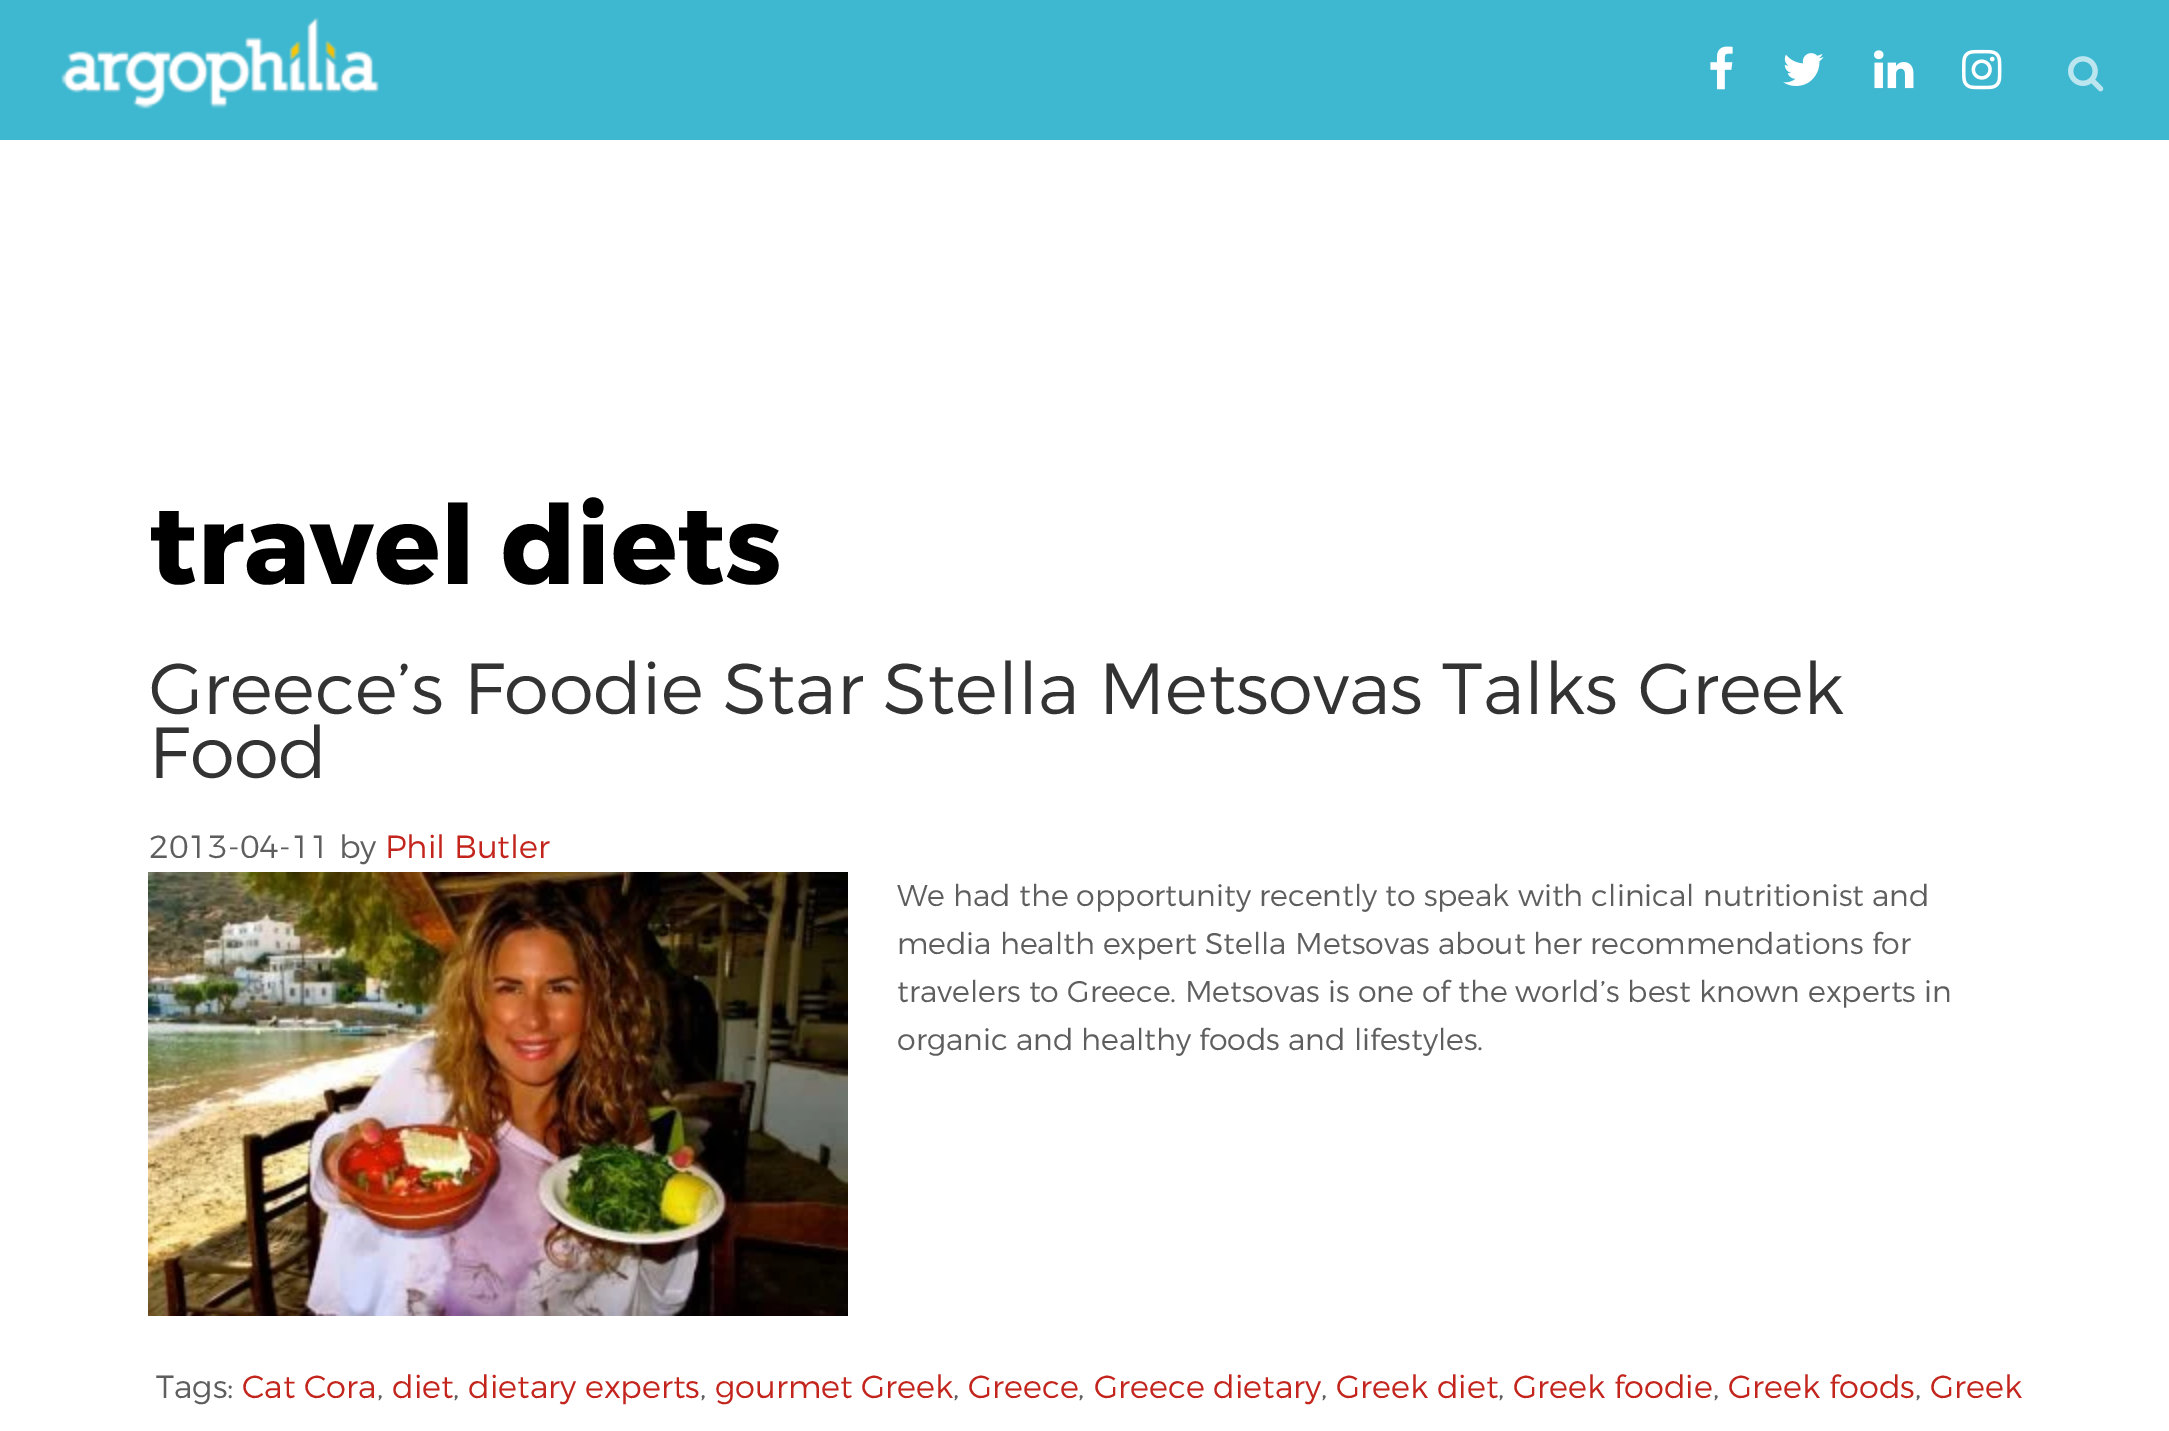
%!PS-Adobe-3.0
%%BoundingBox: 0 0 2169 1431
%%LanguageLevel: 3
%%Pages: 1
%%EndComments
%%BeginProlog
/setink { dup -16 bitshift 255 div exch dup -8 bitshift 255 and 255 div exch 255 and 255 div setrgbcolor } def
/usefont { [ exch dup neg 0 0 3 -1 roll 0 0 ] selectfont } def
/drawimage { 5 dict begin { /h /w /y /x /name } { exch def } forall
  gsave x y translate w h scale
  w h 8 [w 0 0 h 0 0] name (r) file false 3 colorimage grestore end } def
%%EndProlog
%%BeginSetup
<< /PageSize [2169 1431] >> setpagedevice
%%EndSetup
%%Page: 1 1
0 1431 translate 1 -1 scale
4 setmiterlimit
16#FFFFFF setink
0 0 2169 1431 rectfill
16#3EB8D0 setink
0 0 2169 140 rectfill
(img1.raw) 61 17 318 92 drawimage
(img2.raw) 1710 46 23 44 drawimage
(img3.raw) 1783 53 41 33 drawimage
(img4.raw) 1874 50 40 39 drawimage
(img5.raw) 1962 49 40 41 drawimage
(img6.raw) 2068 56 36 36 drawimage
/Montserrat-Bold 110 usefont
16#000000 setink
149 584 moveto (travel diets) show
/Montserrat-Light 72 usefont
16#333333 setink
149 714 moveto (Greece’s Foodie Star Stella Metsovas Talks Greek) show
149 778 moveto (Food) show
/Montserrat-Light 32 usefont
16#5E5E5E setink
149 858 moveto (2013-04-11 by) show
16#C3251D setink
385 858 moveto (Phil Butler) show
(img7.raw) 148 872 700 444 drawimage
/Montserrat-Light 30 usefont
16#5E5E5E setink
[
    [(We had the opportunity recently to speak with clinical nutritionist and) 897 906]
    [(media health expert Stella Metsovas about her recommendations for) 897 954]
    [(travelers to Greece. Metsovas is one of the world’s best known experts in) 897 1002]
    [(organic and healthy foods and lifestyles.) 897 1050]
] { aload pop moveto show } forall
/Montserrat-Light 32 usefont
156 1398 moveto (Tags:) show
16#C3251D setink
242 1398 moveto (Cat Cora) show
16#5E5E5E setink
377 1398 moveto (,) show
16#C3251D setink
392 1398 moveto (diet) show
16#5E5E5E setink
453 1398 moveto (,) show
16#C3251D setink
468 1398 moveto (dietary experts) show
16#5E5E5E setink
700 1398 moveto (,) show
16#C3251D setink
715 1398 moveto (gourmet Greek) show
16#5E5E5E setink
953 1398 moveto (,) show
16#C3251D setink
968 1398 moveto (Greece) show
16#5E5E5E setink
1078 1398 moveto (,) show
16#C3251D setink
1094 1398 moveto (Greece dietary) show
16#5E5E5E setink
1321 1398 moveto (,) show
16#C3251D setink
1336 1398 moveto (Greek diet) show
16#5E5E5E setink
1498 1398 moveto (,) show
16#C3251D setink
1513 1398 moveto (Greek foodie) show
16#5E5E5E setink
1713 1398 moveto (,) show
16#C3251D setink
1728 1398 moveto (Greek foods) show
16#5E5E5E setink
1915 1398 moveto (,) show
16#C3251D setink
1930 1398 moveto (Greek) show
showpage
%%EOF
